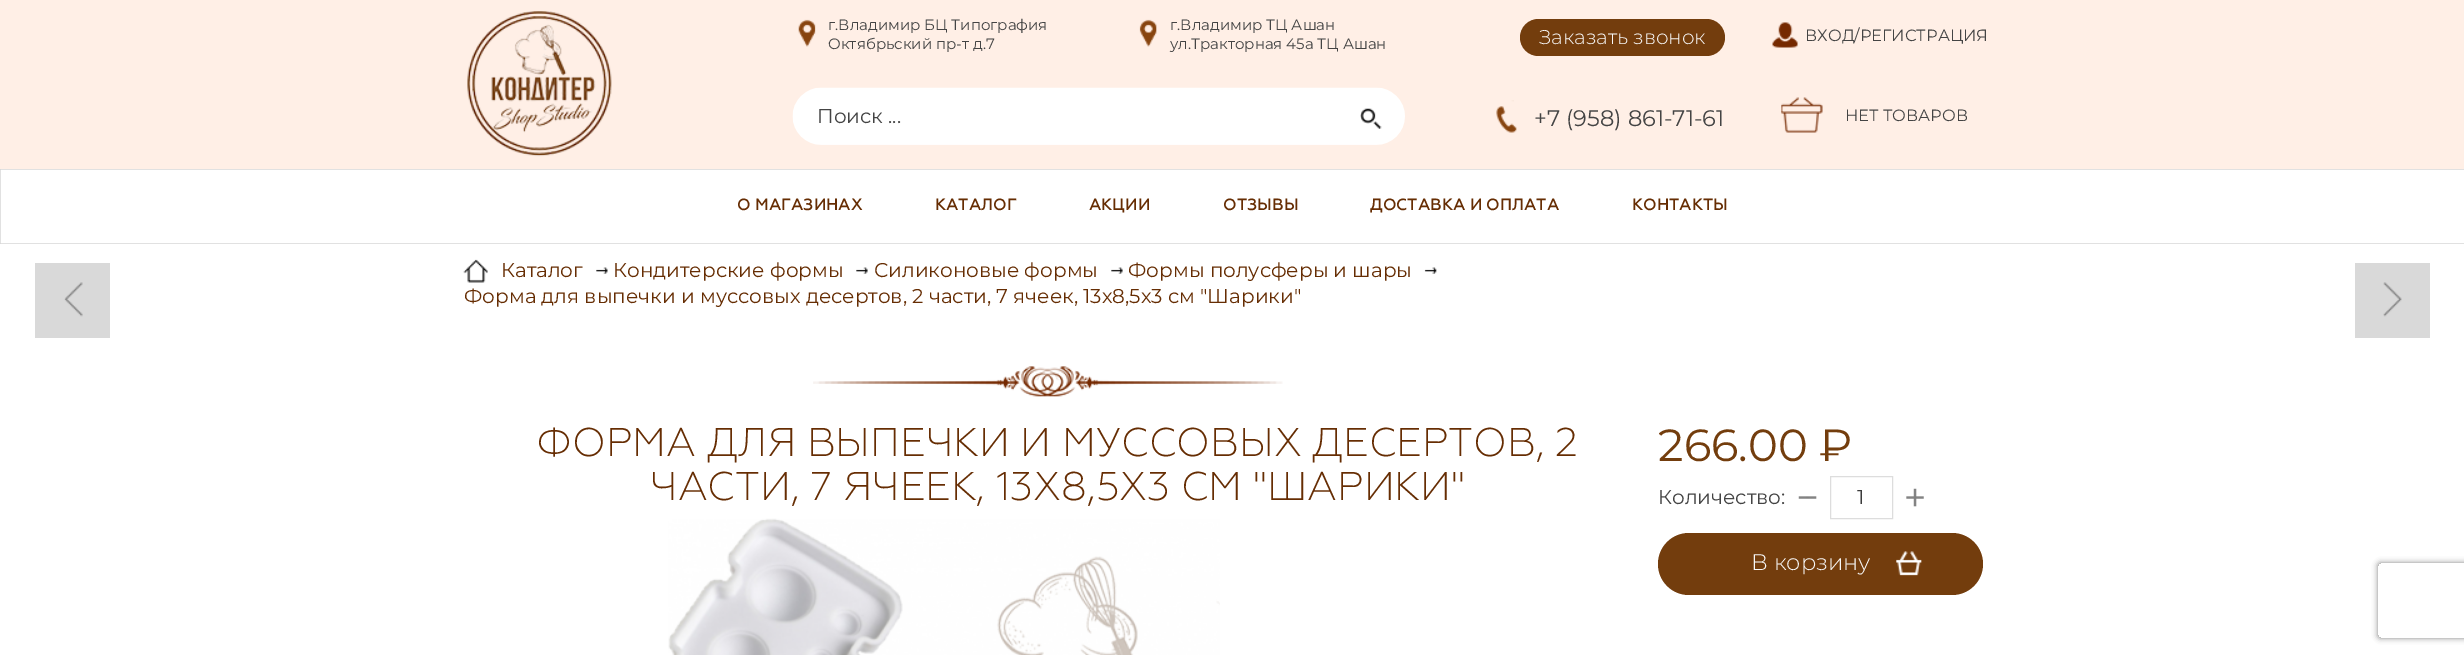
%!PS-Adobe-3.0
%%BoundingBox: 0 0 2464 655
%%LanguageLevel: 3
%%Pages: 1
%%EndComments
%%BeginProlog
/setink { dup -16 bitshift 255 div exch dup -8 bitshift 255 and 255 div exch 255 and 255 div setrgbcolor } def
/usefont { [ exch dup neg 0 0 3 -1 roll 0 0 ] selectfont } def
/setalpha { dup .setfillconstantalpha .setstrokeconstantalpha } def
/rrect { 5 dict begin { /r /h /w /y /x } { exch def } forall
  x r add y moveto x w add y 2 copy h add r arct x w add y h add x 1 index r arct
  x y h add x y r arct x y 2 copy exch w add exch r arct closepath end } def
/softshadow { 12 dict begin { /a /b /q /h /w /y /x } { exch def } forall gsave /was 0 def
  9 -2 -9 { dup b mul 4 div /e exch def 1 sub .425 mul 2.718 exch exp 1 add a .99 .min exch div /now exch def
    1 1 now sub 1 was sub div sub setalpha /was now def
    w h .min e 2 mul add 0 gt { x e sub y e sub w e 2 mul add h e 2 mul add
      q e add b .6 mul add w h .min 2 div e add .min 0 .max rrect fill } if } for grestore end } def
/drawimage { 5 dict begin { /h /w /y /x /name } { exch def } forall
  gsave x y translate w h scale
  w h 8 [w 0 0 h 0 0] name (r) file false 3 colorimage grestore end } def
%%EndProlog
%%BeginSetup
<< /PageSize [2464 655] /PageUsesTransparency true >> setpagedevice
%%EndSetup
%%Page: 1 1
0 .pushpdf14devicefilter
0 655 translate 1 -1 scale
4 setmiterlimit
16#FFFFFF setink
0 0 2464 655 rectfill
16#FFEFE6 setink
0 0 2464 169 rectfill
(img1.raw) 467 11 145 146 drawimage
(img2.raw) 798 19 18 28 drawimage
/Montserrat-Regular 15 usefont
16#444444 setink
828 30 moveto (г.Владимир БЦ Типография) show
828 49 moveto (Октябрьский пр-т д.7) show
(img3.raw) 1139 19 18 28 drawimage
1170 30 moveto (г.Владимир ТЦ Ашан) show
1170 49 moveto (ул.Тракторная 45а ТЦ Ашан) show
16#733D0D setink
1520 19 205 37 18.5 rrect fill
/Montserrat-Light 20 usefont
16#F8F8F8 setink
1539 44 moveto (Заказать звонок) show
(img4.raw) 1772 22 26 26 drawimage
/Montserrat-Regular 16.25 usefont
16#444444 setink
1805 41 moveto (ВХОД/РЕГИСТРАЦИЯ) show
(img5.raw) 792 87 613 58 drawimage
/Montserrat-Regular 20 usefont
817 123 moveto (Поиск ...) show
(img6.raw) 1360 108 22 21 drawimage
(img7.raw) 1496 100 21 33 drawimage
/Montserrat-Regular 22.5 usefont
1534 126 moveto (+7 \(958\) 861-71-61) show
(img8.raw) 1781 97 42 36 drawimage
/Montserrat-Regular 16.25 usefont
1845 121 moveto (НЕТ ТОВАРОВ) show
16#D6D6D6 setink
0.6 setlinewidth
0.3 169.3 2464.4 74.4 rectstroke
/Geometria-Medium 16.25 usefont
16#662D03 setink
[
    [(О МАГАЗИНАХ) 737 210]
    [(КАТАЛОГ) 935 210]
    [(АКЦИИ) 1089 210]
    [(ОТЗЫВЫ) 1223 210]
    [(ДОСТАВКА И ОПЛАТА) 1370 210]
    [(КОНТАКТЫ) 1632 210]
] { aload pop moveto show } forall
(img9.raw) 463 259 25 24 drawimage
/Montserrat-Regular 20 usefont
501 277 moveto (Каталог) show
(img10.raw) 596 267 12 7 drawimage
613 277 moveto (Кондитерские формы) show
(img11.raw) 856 267 12 7 drawimage
874 277 moveto (Силиконовые формы) show
(img11.raw) 1111 267 12 7 drawimage
1128 277 moveto (Формы полусферы и шары) show
(img12.raw) 1424 267 13 7 drawimage
464 303 moveto (Форма для выпечки и муссовых десертов, 2 части, 7 ячеек, 13х8,5х3 см "Шарики") show
16#D9D9D9 setink
35 263 75 75 rectfill
(img13.raw) 64 282 19 35 drawimage
2355 263 75 75 rectfill
(img14.raw) 2383 282 19 35 drawimage
(img15.raw) 813 366 470 31 drawimage
/Geometria-Light 40 usefont
16#662D03 setink
536 456 moveto (ФОРМА ДЛЯ ВЫПЕЧКИ И МУССОВЫХ ДЕСЕРТОВ, 2) show
650 500 moveto (ЧАСТИ, 7 ЯЧЕЕК, 13Х8,5Х3 СМ "ШАРИКИ") show
(img16.raw) 668 518 552 137 drawimage
/Montserrat-Regular 45 usefont
16#733D0D setink
1658 461 moveto (266.00 ₽) show
/Montserrat-Regular 20 usefont
16#444444 setink
1658 504 moveto (Количество:) show
(img17.raw) 1798 496 19 3 drawimage
16#DDDDDD setink
1 setlinewidth
1830.5 476.5 62 42 rectstroke
16#3C3C3C setink
1857 504 moveto (1) show
(img18.raw) 1906 488 18 19 drawimage
16#733D0D setink
1658 533 325 62 31 rrect fill
/Montserrat-Light 22.5 usefont
16#F8F8F8 setink
1751 570 moveto (В корзину) show
(img19.raw) 1896 551 26 25 drawimage
gsave
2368 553 moveto 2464 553 lineto 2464 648 lineto 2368 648 lineto closepath 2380.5 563 moveto 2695.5 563 lineto 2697 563 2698 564 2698 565.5 curveto 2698 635.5 lineto 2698 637 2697 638 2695.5 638 curveto 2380.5 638 lineto 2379 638 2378 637 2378 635.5 curveto 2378 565.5 lineto 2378 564 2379 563 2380.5 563 curveto closepath eoclip newpath
16#808080 setink
2378 563 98 75 2.5 3 1 softshadow
grestore
.poppdf14devicefilter showpage
%%EOF
